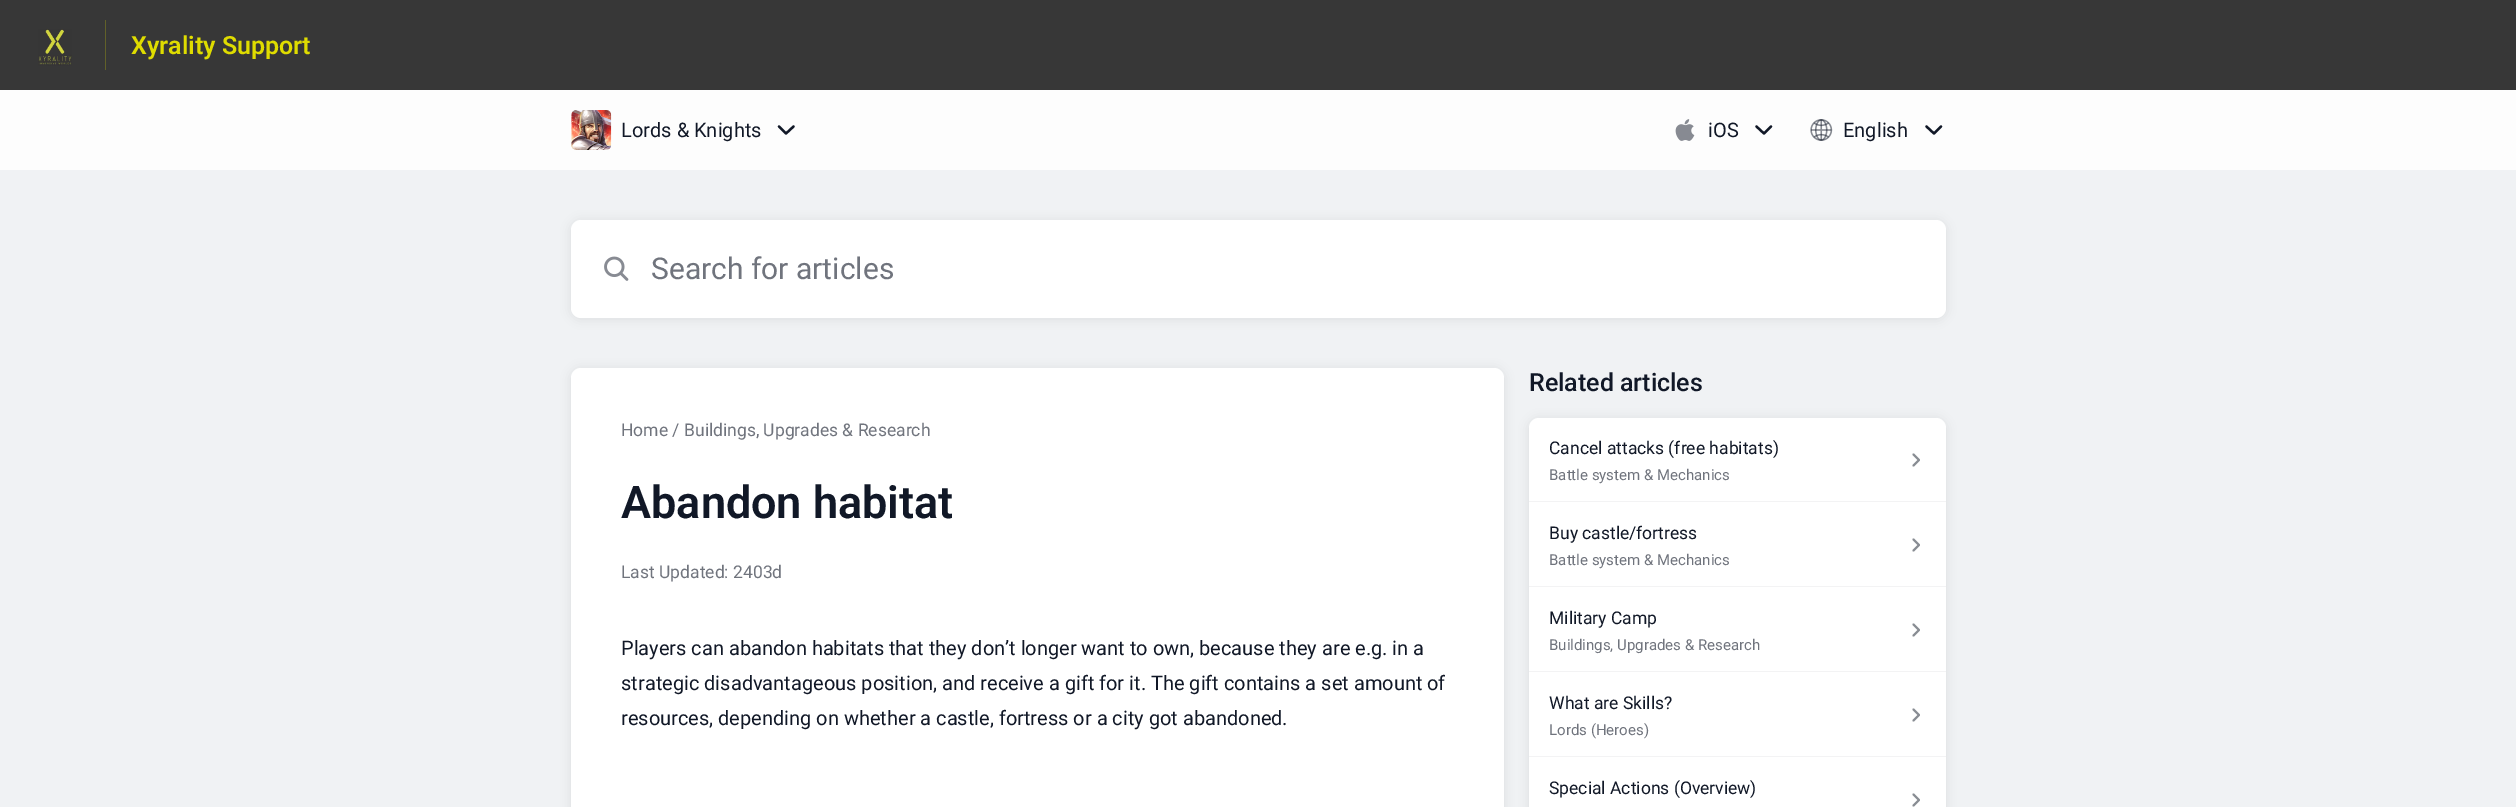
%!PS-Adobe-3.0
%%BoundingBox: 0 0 2516 807
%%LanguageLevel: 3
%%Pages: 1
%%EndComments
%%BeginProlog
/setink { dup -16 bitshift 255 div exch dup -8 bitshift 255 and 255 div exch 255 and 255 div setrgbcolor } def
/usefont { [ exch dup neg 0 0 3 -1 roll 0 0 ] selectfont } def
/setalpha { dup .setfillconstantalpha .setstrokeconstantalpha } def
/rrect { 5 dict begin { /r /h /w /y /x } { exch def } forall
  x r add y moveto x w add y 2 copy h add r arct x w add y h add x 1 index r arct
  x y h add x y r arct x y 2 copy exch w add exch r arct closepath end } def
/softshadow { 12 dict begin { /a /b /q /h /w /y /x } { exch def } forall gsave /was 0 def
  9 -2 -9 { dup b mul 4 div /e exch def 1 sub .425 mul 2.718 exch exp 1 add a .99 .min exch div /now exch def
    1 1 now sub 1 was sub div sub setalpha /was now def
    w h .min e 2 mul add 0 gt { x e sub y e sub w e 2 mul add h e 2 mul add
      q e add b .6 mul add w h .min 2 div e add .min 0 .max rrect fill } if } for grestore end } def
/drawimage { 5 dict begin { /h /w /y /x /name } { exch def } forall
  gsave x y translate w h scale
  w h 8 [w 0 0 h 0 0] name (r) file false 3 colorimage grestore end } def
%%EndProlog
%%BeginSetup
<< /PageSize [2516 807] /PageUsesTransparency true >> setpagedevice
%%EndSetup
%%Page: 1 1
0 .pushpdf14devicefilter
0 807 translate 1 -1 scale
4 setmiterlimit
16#FDFDFD setink
0 0 2516 807 rectfill
16#373737 setink
0 0 2516 90 rectfill
16#616029 setink
105 20 1 50 rectfill
(img1.raw) 38 29 34 37 drawimage
/Roboto-SemiBold 25 usefont
16#DFDC00 setink
131 54 moveto (Xyrality Support) show
(img2.raw) 571 110 41 40 drawimage
/Roboto-Regular 20 usefont
16#111827 setink
621 137 moveto (Lords & Knights) show
2.3 setlinewidth
1 setlinecap
1 setlinejoin
779 126.5 moveto 786 133.5 lineto 793.5 126.5 lineto stroke
(img3.raw) 1675 119 20 22 drawimage
1708 137 moveto (iOS) show
1756.5 126.5 moveto 1764 133.5 lineto 1771 126.5 lineto stroke
(img4.raw) 1810 119 23 22 drawimage
1843 137 moveto (English) show
1926.5 126.5 moveto 1934 133.5 lineto 1941 126.5 lineto stroke
16#F0F2F4 setink
0 170 2516 637 rectfill
16#000000 setink
571 221 1375 98 10 5 0.08 softshadow
16#FFFFFF setink
571 220 1375 98 10 rrect fill
(img5.raw) 604 256 25 25 drawimage
/Roboto-Regular 30 usefont
16#70747D setink
651 279 moveto (Search for articles) show
16#000000 setink
571 369 933 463 10 5 0.08 softshadow
16#FFFFFF setink
581 368 moveto 1494 368 lineto 1499.5 368 1504 372.5 1504 378 curveto 1504 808 lineto 571 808 lineto 571 378 lineto 571 372.5 575.5 368 581 368 curveto closepath fill
/Roboto-Regular 17.5 usefont
16#70747D setink
621 436 moveto (Home / Buildings, Upgrades & Research) show
/Roboto-SemiBold 45 usefont
16#111827 setink
621 518 moveto (Abandon habitat) show
/Roboto-Regular 17.5 usefont
16#70747D setink
621 578 moveto (Last Updated: 2403d) show
/Roboto-Regular 20 usefont
16#111827 setink
[
    [(Players can abandon habitats that they don’t longer want to own, because they are e.g. in a) 621 655]
    [(strategic disadvantageous position, and receive a gift for it. The gift contains a set amount of) 621 690]
    [(resources, depending on whether a castle, fortress or a city got abandoned.) 621 725]
] { aload pop moveto show } forall
/Roboto-Medium 25 usefont
1529 391 moveto (Related articles) show
16#000000 setink
1529 419 417 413 10 5 0.08 softshadow
16#FFFFFF setink
1539 418 moveto 1936 418 lineto 1941.5 418 1946 422.5 1946 428 curveto 1946 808 lineto 1529 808 lineto 1529 428 lineto 1529 422.5 1533.5 418 1539 418 curveto closepath fill
16#F3F3F4 setink
1529 501 417 1 rectfill
/Roboto-Regular 17.5 usefont
16#111827 setink
1549 454 moveto (Cancel attacks \(free habitats\)) show
/Roboto-Regular 15 usefont
16#70747D setink
1549 480 moveto (Battle system & Mechanics) show
16#888C93 setink
1.9 setlinewidth
1913.5 454.5 moveto 1919 460 lineto 1913.5 465.5 lineto stroke
16#F3F3F4 setink
1529 586 417 1 rectfill
/Roboto-Regular 17.5 usefont
16#111827 setink
1549 539 moveto (Buy castle/fortress) show
/Roboto-Regular 15 usefont
16#70747D setink
1549 565 moveto (Battle system & Mechanics) show
16#888C93 setink
1913.5 539.5 moveto 1919 545 lineto 1913.5 550.5 lineto stroke
16#F3F3F4 setink
1529 671 417 1 rectfill
/Roboto-Regular 17.5 usefont
16#111827 setink
1549 624 moveto (Military Camp) show
/Roboto-Regular 15 usefont
16#70747D setink
1549 650 moveto (Buildings, Upgrades & Research) show
16#888C93 setink
1913.5 624.5 moveto 1919 630 lineto 1913.5 635.5 lineto stroke
16#F3F3F4 setink
1529 756 417 1 rectfill
/Roboto-Regular 17.5 usefont
16#111827 setink
1549 709 moveto (What are Skills?) show
/Roboto-Regular 15 usefont
16#70747D setink
1549 735 moveto (Lords \(Heroes\)) show
16#888C93 setink
1913.5 709.5 moveto 1919 715 lineto 1913.5 720.5 lineto stroke
/Roboto-Regular 17.5 usefont
16#111827 setink
1549 794 moveto (Special Actions \(Overview\)) show
16#888C93 setink
1913.5 794.5 moveto 1919 800 lineto 1913.5 805.5 lineto stroke
.poppdf14devicefilter showpage
%%EOF
